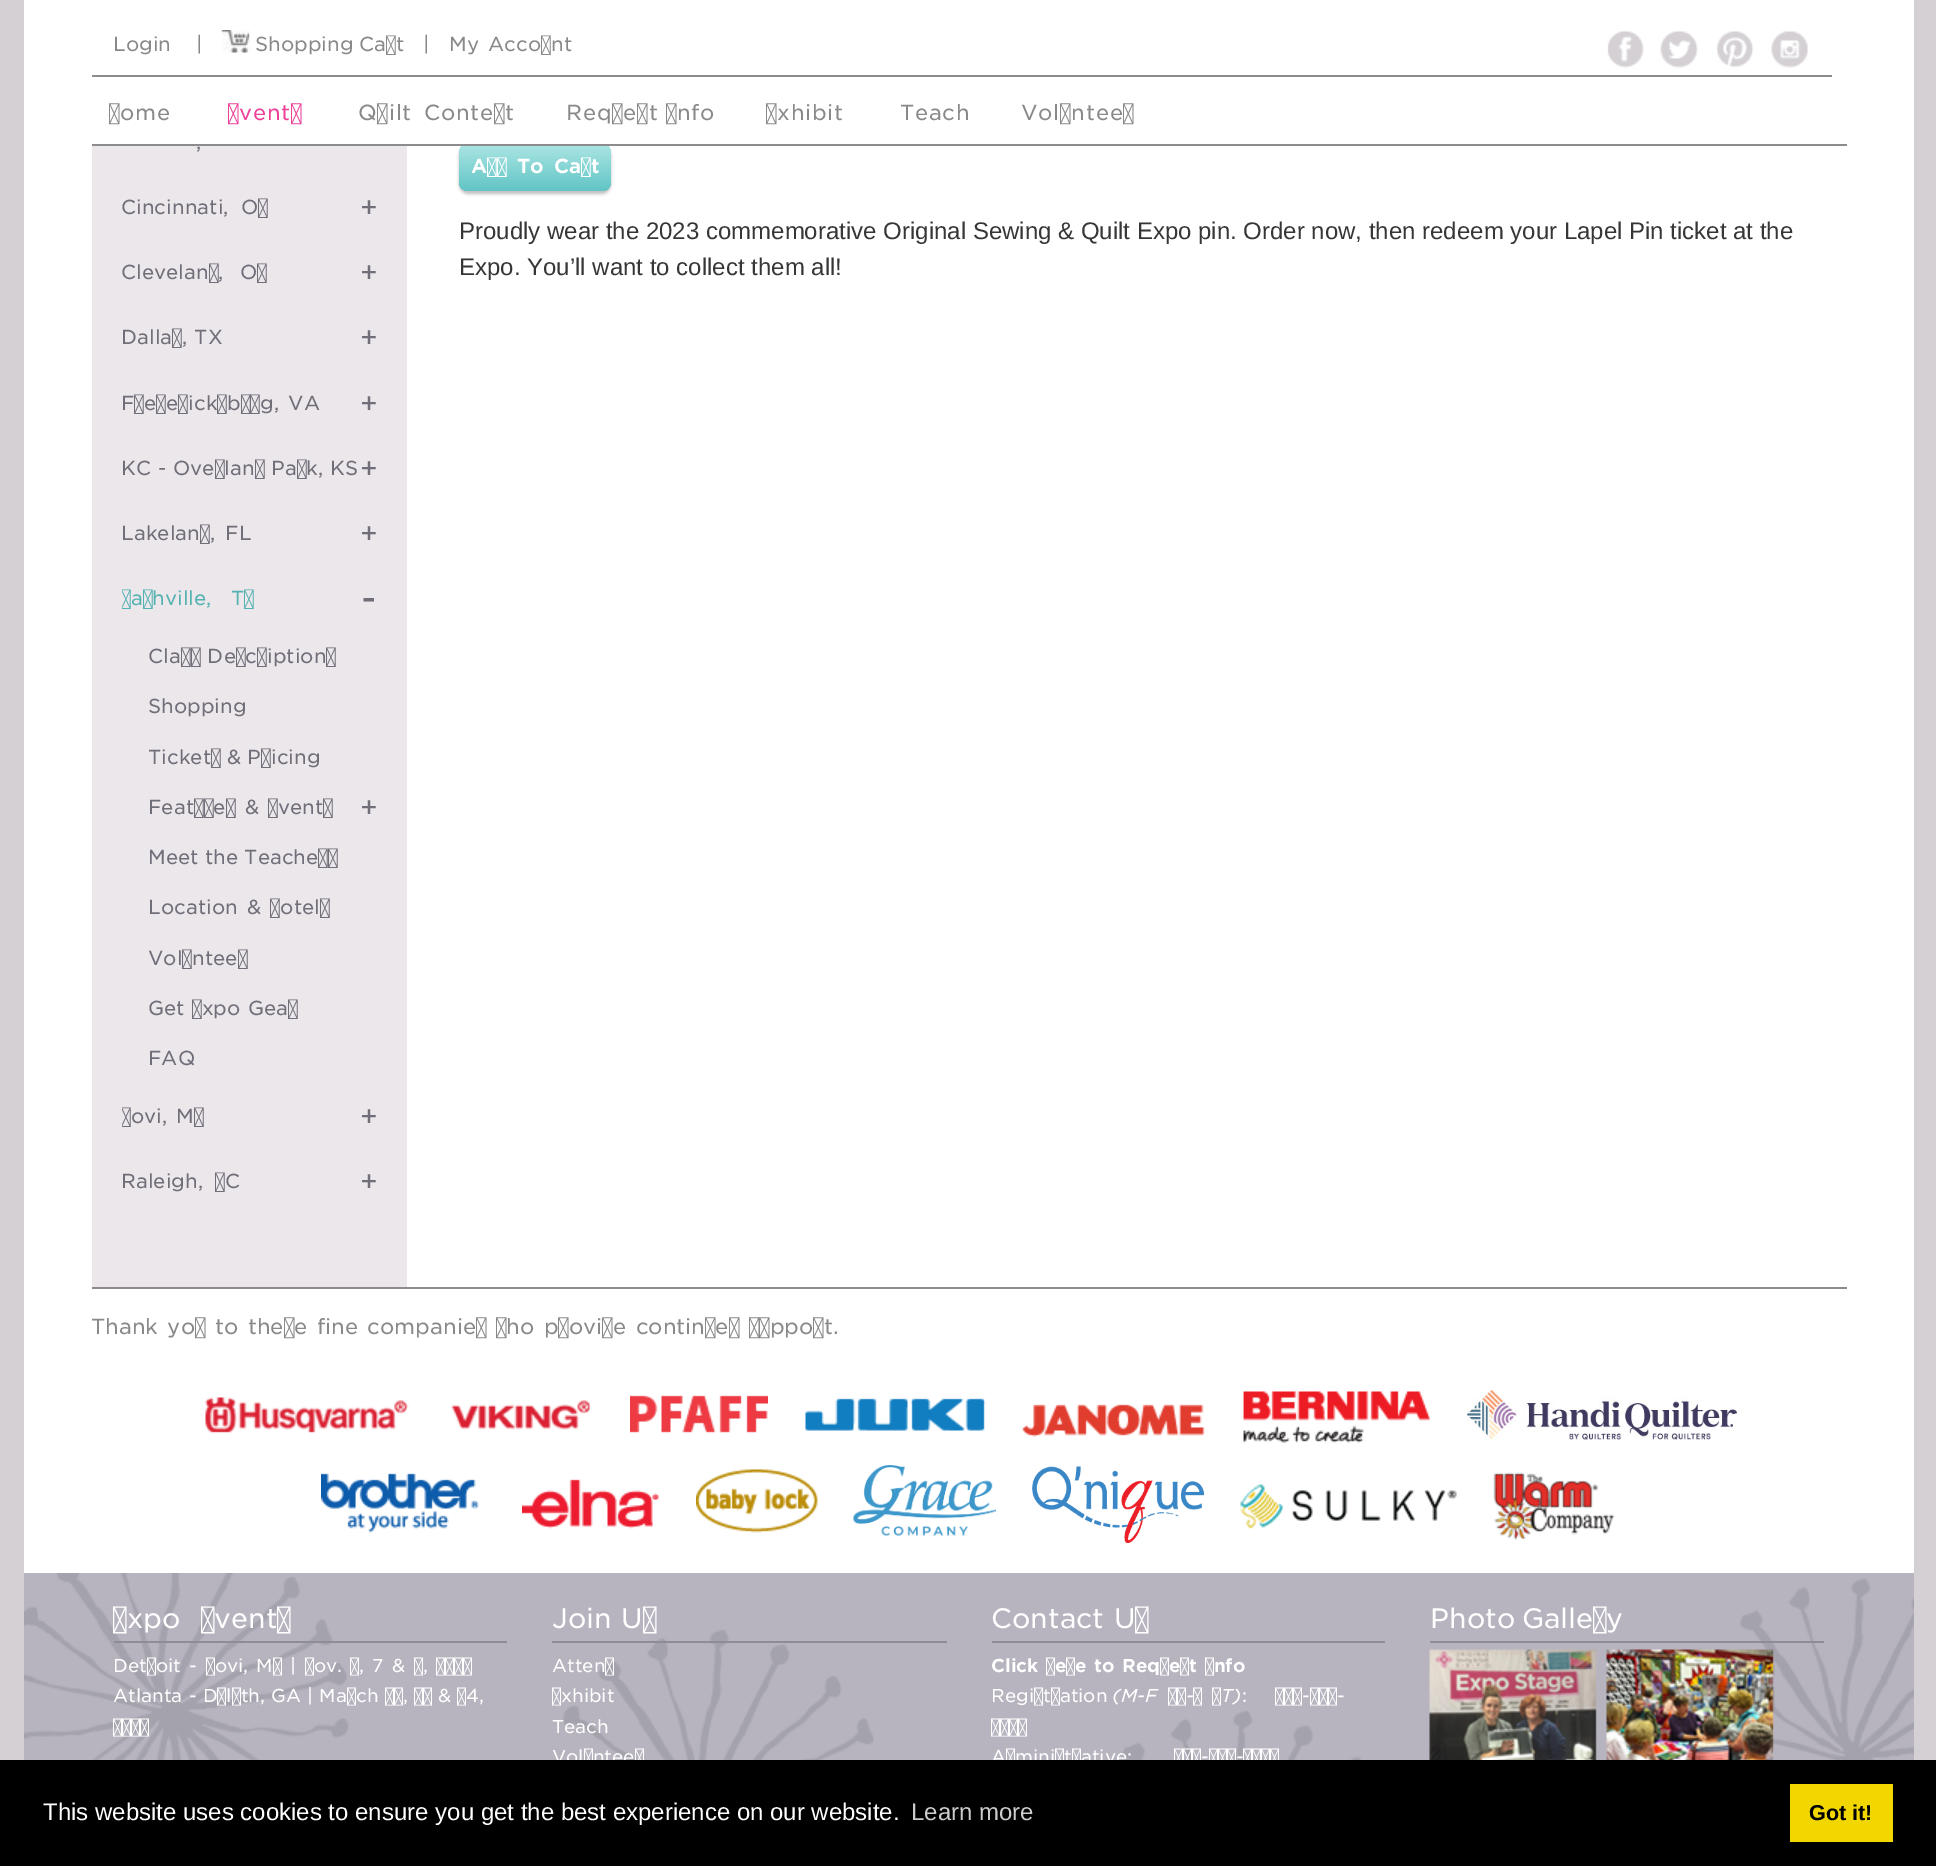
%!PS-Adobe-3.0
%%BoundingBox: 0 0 1936 1866
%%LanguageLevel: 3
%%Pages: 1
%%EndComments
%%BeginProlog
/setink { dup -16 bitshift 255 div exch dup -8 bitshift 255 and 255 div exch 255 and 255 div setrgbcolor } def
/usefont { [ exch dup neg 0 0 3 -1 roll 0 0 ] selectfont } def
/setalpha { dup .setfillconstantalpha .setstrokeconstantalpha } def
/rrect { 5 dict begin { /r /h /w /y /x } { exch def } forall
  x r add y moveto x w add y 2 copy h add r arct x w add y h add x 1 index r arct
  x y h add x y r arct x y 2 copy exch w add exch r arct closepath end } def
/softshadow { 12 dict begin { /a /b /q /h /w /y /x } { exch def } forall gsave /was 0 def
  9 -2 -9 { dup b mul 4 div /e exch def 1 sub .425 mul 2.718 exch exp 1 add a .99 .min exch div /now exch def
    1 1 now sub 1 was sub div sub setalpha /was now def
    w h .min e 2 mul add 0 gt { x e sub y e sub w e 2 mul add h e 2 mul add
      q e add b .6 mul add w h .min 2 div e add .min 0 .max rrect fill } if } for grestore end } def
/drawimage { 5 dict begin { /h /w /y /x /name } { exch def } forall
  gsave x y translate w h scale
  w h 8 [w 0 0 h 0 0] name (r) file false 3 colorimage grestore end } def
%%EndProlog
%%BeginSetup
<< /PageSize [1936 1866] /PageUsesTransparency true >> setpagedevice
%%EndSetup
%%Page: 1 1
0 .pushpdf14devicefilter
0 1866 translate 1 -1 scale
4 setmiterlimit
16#D4D0D4 setink
0 0 1936 1866 rectfill
16#FFFFFF setink
24 146 1890 1427 rectfill
16#696268 setink
459 147 152 47 9 1.5 0.4 softshadow
gsave 459 144 152 47 9 rrect clip newpath
<< /ShadingType 2 /ColorSpace /DeviceRGB /Coords [535 144 535 191] /Extend [true true] /Function << /FunctionType 2 /Domain [0 1] /C0 [0.671 0.902 0.894] /C1 [0.384 0.769 0.773] /N 1 >> >> shfill grestore
16#FFFFFF setink
24 0 1890 146 rectfill
16#8C8C8E setink
92 75 1740 2 rectfill
/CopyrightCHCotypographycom-Light 19.5 usefont
16#898989 setink
113 51 moveto (Login) show
196 51 moveto (|) show
(img1.raw) 221 30 29 23 drawimage
255 51 moveto -1 0 32 (Shopping Cart) widthshow
423 51 moveto (|) show
449 51 moveto 3 0 32 (My Account) widthshow
(img2.raw) 1607 31 37 37 drawimage
(img3.raw) 1660 31 38 37 drawimage
(img4.raw) 1716 31 38 37 drawimage
(img5.raw) 1771 31 37 37 drawimage
/CopyrightCHCotypographycom-Light 21 usefont
109 120 moveto 0.75 0 (Home) ashow
16#EC4399 setink
228 120 moveto 0.75 0 (Events) ashow
16#898989 setink
358 120 moveto 4 0 32 0.75 0 (Quilt Contest) awidthshow
566 120 moveto 0.75 0 (Request Info) ashow
766 120 moveto 0.75 0 (Exhibit) ashow
900 120 moveto 0.75 0 (Teach) ashow
1021 120 moveto 0.75 0 (Volunteer) ashow
16#8C8C8E setink
92 144 1755 2 rectfill
16#ECE7EB setink
92 146 315 1141 rectfill
/CopyrightCHCotypographycom-Light 19.5 usefont
16#706E78 setink
196 149 moveto (,) show
121 214 moveto 6 0 32 (Cincinnati, OH) widthshow
/CopyrightCHCotypographycom-Light 27 usefont
360 217 moveto (+) show
/CopyrightCHCotypographycom-Light 19.5 usefont
121 279 moveto 10 0 32 (Cleveland, OH) widthshow
/CopyrightCHCotypographycom-Light 27 usefont
360 282 moveto (+) show
/CopyrightCHCotypographycom-Light 19.5 usefont
121 344 moveto 1 0 32 (Dallas, TX) widthshow
/CopyrightCHCotypographycom-Light 27 usefont
360 347 moveto (+) show
/CopyrightCHCotypographycom-Light 19.5 usefont
121 410 moveto 3 0 32 (Fredericksburg, VA) widthshow
/CopyrightCHCotypographycom-Light 27 usefont
360 413 moveto (+) show
/CopyrightCHCotypographycom-Light 19.5 usefont
121 475 moveto 0.5 0 32 (KC - Overland Park, KS) widthshow
/CopyrightCHCotypographycom-Light 27 usefont
360 478 moveto (+) show
/CopyrightCHCotypographycom-Light 19.5 usefont
121 540 moveto 4 0 32 (Lakeland, FL) widthshow
/CopyrightCHCotypographycom-Light 27 usefont
360 543 moveto (+) show
gsave
122 0 285 1227 rectclip
/CopyrightCHCotypographycom-Light 19.5 usefont
16#54B2B1 setink
121 605 moveto 13 0 32 (Nashville, TN) widthshow
grestore
/CopyrightCHCotypographycom-Light 36 usefont
361 611 moveto (-) show
/CopyrightCHCotypographycom-Light 19.5 usefont
148 663 moveto 1 0 32 (Class Descriptions) widthshow
148 713 moveto (Shopping) show
148 764 moveto (Tickets & Pricing) show
148 814 moveto 3 0 32 (Features & Events) widthshow
/CopyrightCHCotypographycom-Light 27 usefont
360 817 moveto (+) show
/CopyrightCHCotypographycom-Light 19.5 usefont
148 864 moveto (Meet the Teachers) show
148 914 moveto 3 0 32 (Location & Hotels) widthshow
148 965 moveto (Volunteer) show
148 1015 moveto 1 0 32 (Get Expo Gear) widthshow
148 1065 moveto (FAQ) show
gsave
122 0 285 1227 rectclip
121 1123 moveto 3 0 32 (Novi, MI) widthshow
grestore
/CopyrightCHCotypographycom-Light 27 usefont
360 1126 moveto (+) show
/CopyrightCHCotypographycom-Light 19.5 usefont
121 1188 moveto 6 0 32 (Raleigh, NC) widthshow
/CopyrightCHCotypographycom-Light 27 usefont
360 1191 moveto (+) show
/CopyrightCHCotypographycom-Regular 19.5 usefont
16#FFFFFF setink
471 173 moveto 4 0 32 (Add To Cart) widthshow
/LiberationSans-Regular 24 usefont
16#363636 setink
459 239 moveto (Proudly wear the 2023 commemorative Original Sewing & Quilt Expo pin. Order now, then redeem your Lapel Pin ticket at the) show
459 275 moveto (Expo. You’ll want to collect them all!) show
16#8C8C8E setink
92 1287 1755 2 rectfill
/CopyrightCHCotypographycom-Light 21 usefont
16#898989 setink
91 1334 moveto 2.75 0 32 (Thank you to these fine companies who provide continued support.) widthshow
(img6.raw) 205 1397 385 36 drawimage
(img7.raw) 630 1395 138 38 drawimage
(img8.raw) 805 1398 181 33 drawimage
(img9.raw) 1022 1404 183 33 drawimage
(img10.raw) 1243 1391 187 52 drawimage
(img11.raw) 1467 1390 270 50 drawimage
(img12.raw) 321 1473 158 60 drawimage
(img13.raw) 522 1479 137 50 drawimage
(img14.raw) 696 1469 122 64 drawimage
(img15.raw) 853 1465 143 71 drawimage
(img16.raw) 1032 1466 173 77 drawimage
(img17.raw) 1240 1484 217 45 drawimage
(img18.raw) 1493 1472 122 68 drawimage
(img19.raw) 24 1573 1890 187 drawimage
16#8F8C97 setink
114 1641 393 2 rectfill
/CopyrightCHCotypographycom-Light 27 usefont
16#FFFFFF setink
113 1628 moveto 12 0 32 (Expo Events) widthshow
/CopyrightCHCotypographycom-Light 18 usefont
113 1672 moveto 2.6 0 32 (Detroit - Novi, MI | Nov. 6, 7 & 8, 2025) widthshow
113 1702 moveto 0.5 0 32 (Atlanta - Duluth, GA | March 12, 13 & 14,) widthshow
113 1733 moveto (2026) show
16#8F8C97 setink
552 1641 395 2 rectfill
/CopyrightCHCotypographycom-Light 27 usefont
16#FFFFFF setink
552 1628 moveto 1 0 32 (Join Us) widthshow
/CopyrightCHCotypographycom-Light 18 usefont
[
    [(Attend) 552 1672]
    [(Exhibit) 552 1702]
    [(Teach) 552 1733]
    [(Volunteer) 552 1763]
] { aload pop moveto show } forall
16#8F8C97 setink
992 1641 393 2 rectfill
/CopyrightCHCotypographycom-Light 27 usefont
16#FFFFFF setink
991 1628 moveto 1 0 32 (Contact Us) widthshow
/CopyrightCHCotypographycom-Regular 18 usefont
991 1672 moveto 1.5 0 32 (Click Here to Request Info) widthshow
/CopyrightCHCotypographycom-Light 18 usefont
991 1702 moveto (Registration) show
/CopyrightCHCotypographycom-LightItalic 18 usefont
1112 1702 moveto (\() show
1121 1702 moveto 4 0 32 (M-F 10-3 ET\)) widthshow
/CopyrightCHCotypographycom-Light 18 usefont
1242 1702 moveto 22 0 32 (: 800-699-) widthshow
991 1733 moveto (6309) show
991 1763 moveto 36 0 32 (Administrative: 888-699-6309) widthshow
16#8F8C97 setink
1430 1641 394 2 rectfill
/CopyrightCHCotypographycom-Light 27 usefont
16#FFFFFF setink
1430 1628 moveto -2 0 32 (Photo Gallery) widthshow
(img20.raw) 1429 1649 346 111 drawimage
16#000000 setink
0 1760 1936 106 rectfill
/LiberationSans-Regular 24 usefont
16#FFFFFF setink
43 1820 moveto (This website uses cookies to ensure you get the best experience on our website.) show
16#CCCCCC setink
911 1820 moveto (Learn more) show
16#F1D600 setink
1790 1784 103 58 rectfill
/LiberationSans-Bold 21.5 usefont
16#000000 setink
1809 1820 moveto (Got it!) show
.poppdf14devicefilter showpage
%%EOF
